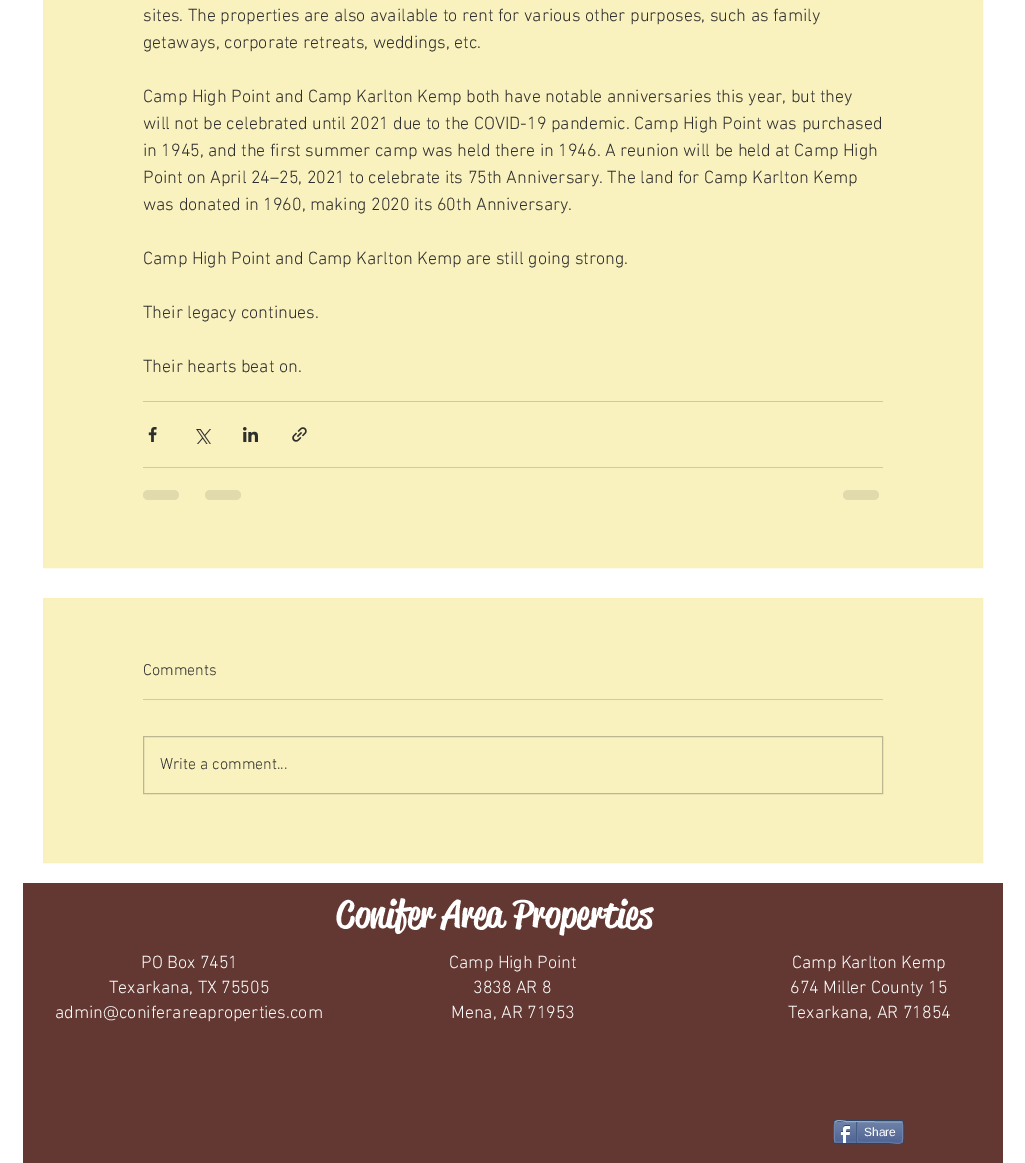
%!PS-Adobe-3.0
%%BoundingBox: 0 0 1025 1163
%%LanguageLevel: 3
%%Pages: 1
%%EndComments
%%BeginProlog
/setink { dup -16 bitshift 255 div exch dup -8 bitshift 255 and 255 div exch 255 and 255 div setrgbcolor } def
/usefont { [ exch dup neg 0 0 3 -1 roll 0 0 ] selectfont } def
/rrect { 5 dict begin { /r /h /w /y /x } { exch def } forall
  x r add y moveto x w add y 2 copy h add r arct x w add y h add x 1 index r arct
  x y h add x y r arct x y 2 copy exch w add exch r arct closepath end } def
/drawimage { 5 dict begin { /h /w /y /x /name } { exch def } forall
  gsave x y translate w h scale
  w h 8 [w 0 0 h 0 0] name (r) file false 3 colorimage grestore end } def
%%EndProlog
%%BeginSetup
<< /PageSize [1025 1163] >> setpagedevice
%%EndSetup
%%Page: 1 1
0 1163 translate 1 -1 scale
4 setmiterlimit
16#FFFFFF setink
0 0 1025 1163 rectfill
16#F9F1BE setink
43.5 -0.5 moveto 982.5 -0.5 lineto 982.5 567.5 lineto 43.5 567.5 lineto closepath gsave fill grestore
16#F9F0BB setink
stroke
/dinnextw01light-Light 18 usefont
16#2F2E2E setink
[
    [(sites. The properties are also available to rent for various other purposes, such as family) 143 21]
    [(getaways, corporate retreats, weddings, etc.) 143 48]
    [(Camp High Point and Camp Karlton Kemp both have notable anniversaries this year, but they) 143 102]
    [(will not be celebrated until 2021 due to the COVID-19 pandemic. Camp High Point was purchased) 143 129]
    [(in 1945, and the first summer camp was held there in 1946. A reunion will be held at Camp High) 143 156]
    [(Point on April 24–25, 2021 to celebrate its 75th Anniversary. The land for Camp Karlton Kemp) 143 183]
    [(was donated in 1960, making 2020 its 60th Anniversary.) 143 210]
    [(Camp High Point and Camp Karlton Kemp are still going strong.) 143 264]
    [(Their legacy continues.) 143 318]
    [(Their hearts beat on.) 143 372]
] { aload pop moveto show } forall
16#D1CAA1 setink
143 401 740 1 rectfill
(img1.raw) 148 427 9 15 drawimage
(img2.raw) 196 429 15 15 drawimage
(img3.raw) 243 427 15 15 drawimage
(img4.raw) 292 427 15 15 drawimage
143 467 740 1 rectfill
16#E1DAAD setink
143 490 36 10 5 rrect fill
205 490 36 10 5 rrect fill
843 490 36 10 5 rrect fill
16#F9F1BE setink
43.5 598.5 moveto 982.5 598.5 lineto 982.5 862.5 lineto 43.5 862.5 lineto closepath gsave fill grestore
16#F9F0BB setink
stroke
/dinnextw01light-Light 16 usefont
16#2F2E2E setink
143 675 moveto (Comments) show
16#D1CAA1 setink
143 699 740 1 rectfill
16#BCB793 setink
143.5 736.5 739 57 rectstroke
16#2F2E2E setink
160 769 moveto (Write a comment...) show
16#633832 setink
23 883 980 280 rectfill
/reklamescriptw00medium-Medium 38 usefont
16#FFFFFF setink
336 927 moveto (Conifer Area Properties) show
/dinnextw01light-Light 18 usefont
[
    [(PO Box 7451) 141 968]
    [(Texarkana, TX 75505) 109 993]
    [(admin@coniferareaproperties.com) 55 1018]
    [(Camp High Point) 449 968]
    [(3838 AR 8) 473 993]
    [(Mena, AR 71953) 451 1018]
    [(Camp Karlton Kemp) 792 968]
    [(674 Miller County 15) 790 993]
    [(Texarkana, AR 71854) 788 1018]
] { aload pop moveto show } forall
16#2D4565 setink
833.5 1120.5 70 23 2.5 rrect stroke
(img5.raw) 834 1122 69 21 drawimage
16#9AABC6 setink
835 1122 moveto 838 1119 843 1121.5 847 1121.5 curveto 902 1122 lineto stroke
16#6F83AD setink
902 1122 moveto 903 1122.5 903 1141.5 902 1142 curveto stroke
16#6176A3 setink
902 1142 moveto 899 1145 894 1142.5 890 1142.5 curveto 835 1142 lineto stroke
16#6F83AD setink
835 1142 moveto 834 1141.5 834 1122.5 835 1122 curveto stroke
(img6.raw) 840 1125 10 18 drawimage
16#425E85 setink
856 1122 1 21 rectfill
/LiberationSans-Regular 12 usefont
16#FFFFFF setink
864 1136 moveto (Share) show
16#6176A3 setink
857 1122 1 20 rectfill
showpage
%%EOF
